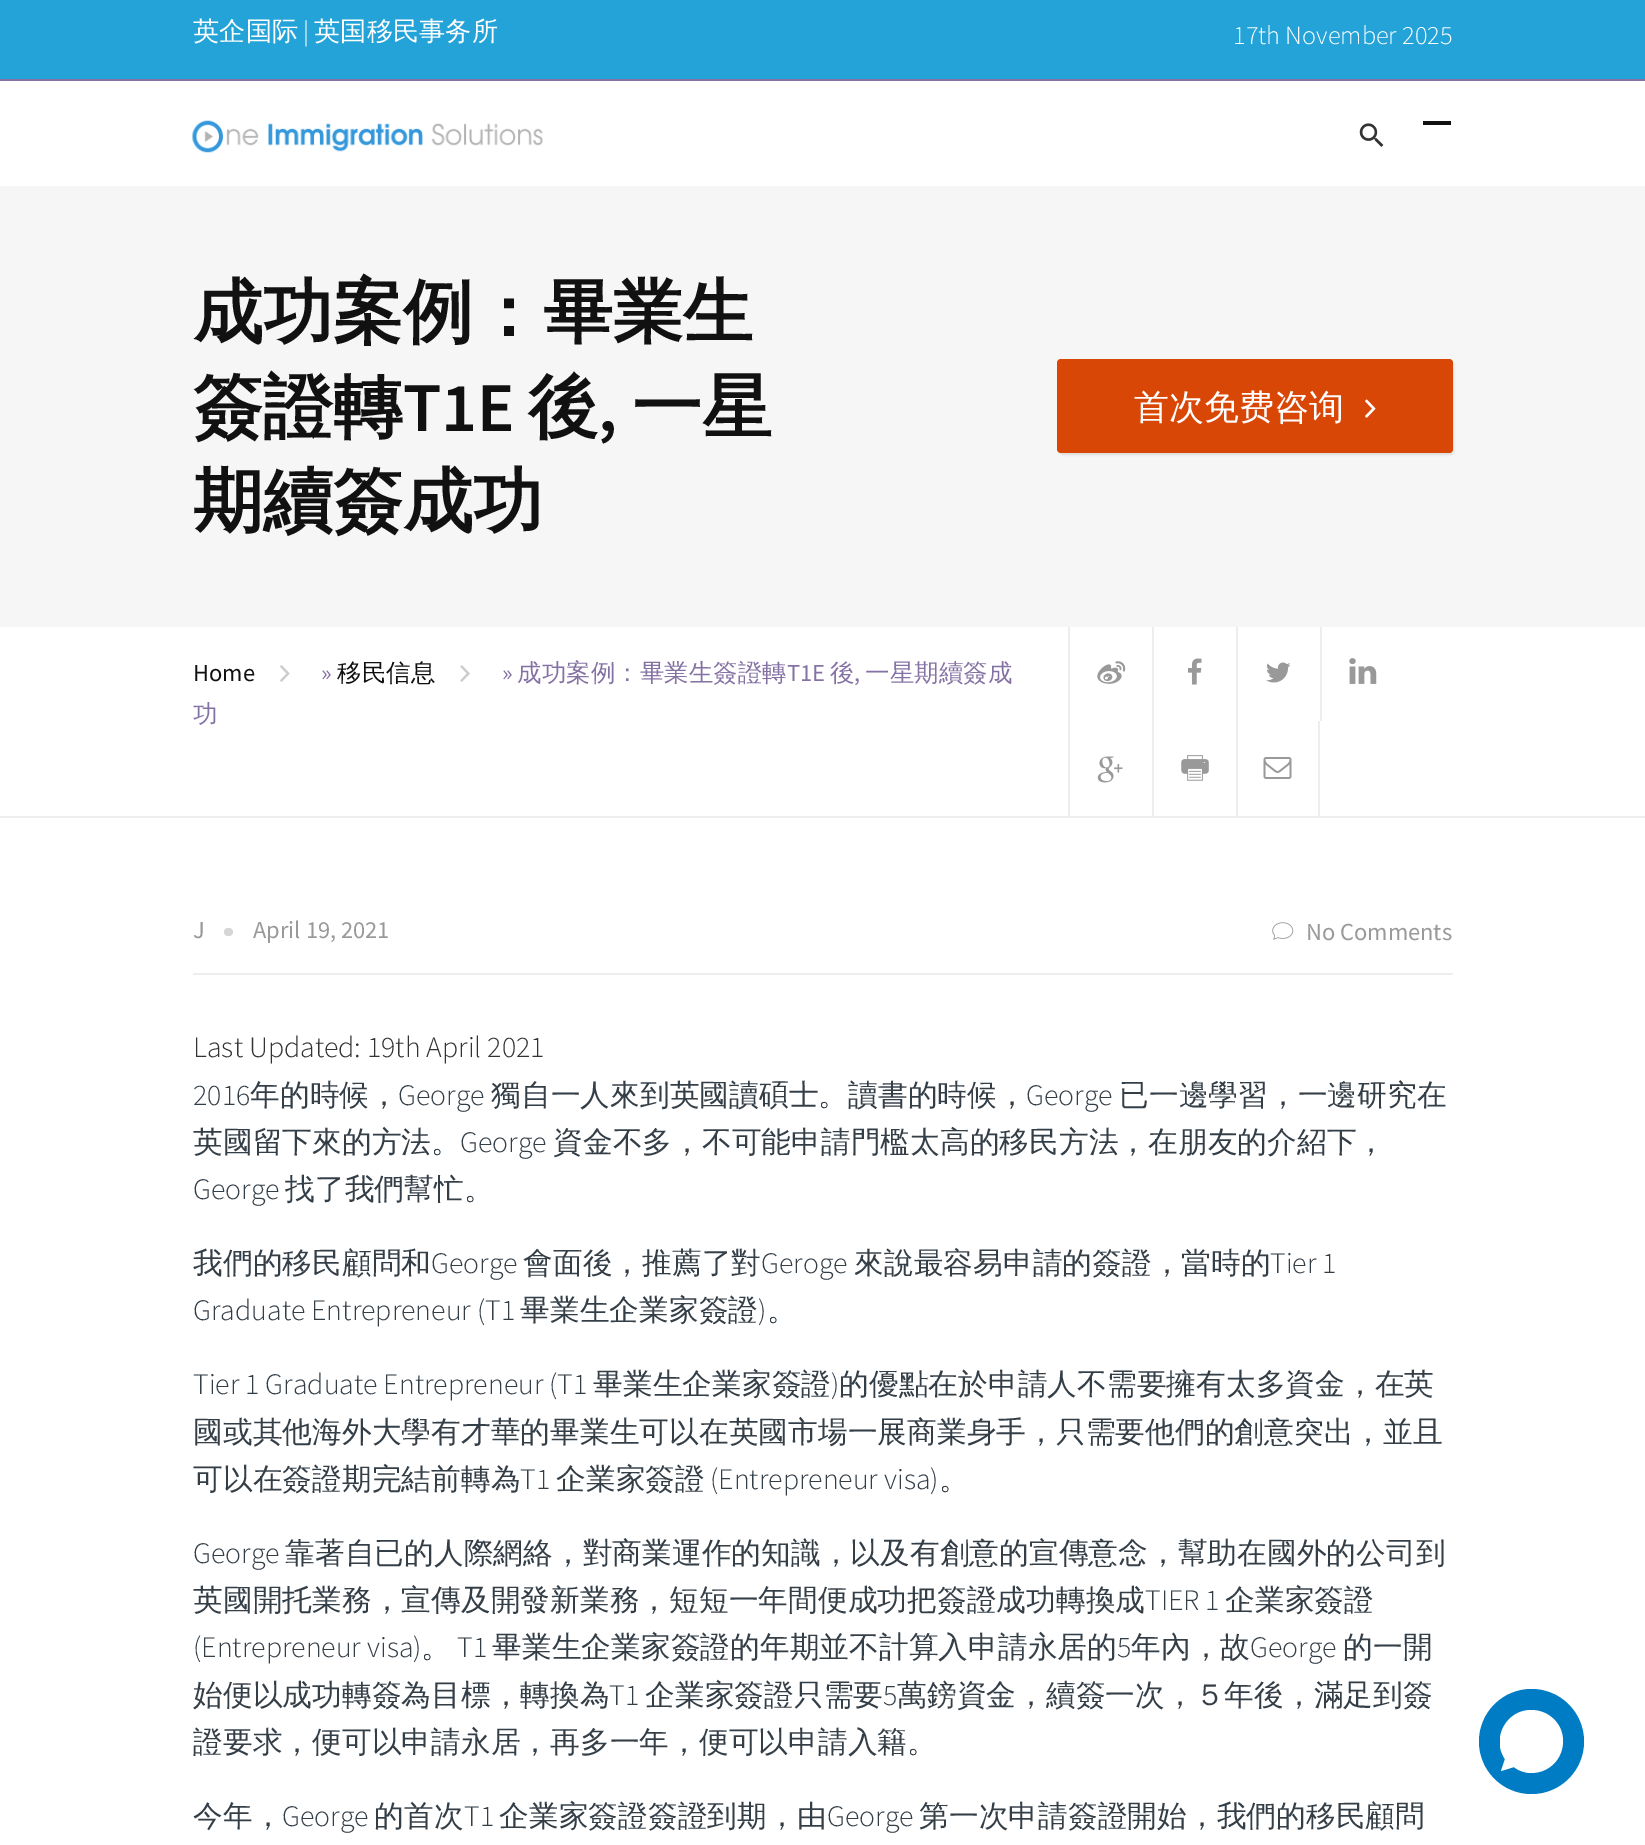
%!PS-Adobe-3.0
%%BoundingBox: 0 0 1645 1845
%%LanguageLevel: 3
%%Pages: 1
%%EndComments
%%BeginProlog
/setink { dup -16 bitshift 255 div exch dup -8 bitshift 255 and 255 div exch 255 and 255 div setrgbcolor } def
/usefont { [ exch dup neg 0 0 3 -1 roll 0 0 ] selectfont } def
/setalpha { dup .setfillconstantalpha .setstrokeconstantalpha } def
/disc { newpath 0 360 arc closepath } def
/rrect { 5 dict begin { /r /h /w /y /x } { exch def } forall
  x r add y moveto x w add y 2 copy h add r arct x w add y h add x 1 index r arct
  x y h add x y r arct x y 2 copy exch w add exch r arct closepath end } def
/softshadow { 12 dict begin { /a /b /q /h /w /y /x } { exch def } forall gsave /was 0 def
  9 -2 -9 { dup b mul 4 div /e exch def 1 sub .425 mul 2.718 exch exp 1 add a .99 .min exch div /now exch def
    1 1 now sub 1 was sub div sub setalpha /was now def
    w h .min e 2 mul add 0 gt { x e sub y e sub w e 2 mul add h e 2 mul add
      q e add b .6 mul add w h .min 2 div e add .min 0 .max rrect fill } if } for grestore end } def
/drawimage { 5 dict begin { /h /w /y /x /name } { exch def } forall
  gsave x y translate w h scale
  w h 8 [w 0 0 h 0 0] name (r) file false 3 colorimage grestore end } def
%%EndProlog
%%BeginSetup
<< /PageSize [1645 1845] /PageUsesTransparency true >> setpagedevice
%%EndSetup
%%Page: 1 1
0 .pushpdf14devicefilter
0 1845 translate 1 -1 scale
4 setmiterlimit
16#FFFFFF setink
0 0 1645 1845 rectfill
16#24A3D8 setink
0 0 1645 79 rectfill
16#8572A4 setink
0 79 1645 2 rectfill
/WenQuanYiZenHei-Medium 26.25 usefont
16#FFFFFF setink
193 40 moveto (英企国际) show
/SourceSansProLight-Light 26.25 usefont
303 40 moveto (|) show
/WenQuanYiZenHei-Medium 26.25 usefont
314 40 moveto (英国移民事务所) show
/SourceSansProLight-Light 26.25 usefont
1233 44 moveto (17th November 2025) show
(img1.raw) 192 120 351 33 drawimage
(img2.raw) 1359 123 25 24 drawimage
16#111111 setink
1423 121 28 4 rectfill
16#F6F6F6 setink
0 186 1645 441 rectfill
/WenQuanYiZenHei-Bold 70 usefont
16#111111 setink
193 336 moveto (成功案例：畢業生) show
193 431 moveto (簽證轉) show
/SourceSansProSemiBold-SemiBold 70 usefont
403 431 moveto (T1E) show
/WenQuanYiZenHei-Bold 70 usefont
528 431 moveto (後) show
/SourceSansProSemiBold-SemiBold 70 usefont
598 431 moveto (,) show
/WenQuanYiZenHei-Bold 70 usefont
632 431 moveto (一星) show
193 525 moveto (期續簽成功) show
16#000000 setink
1059 361 395 94 4 1 0.1 softshadow
16#D94707 setink
1057 359 396 94 4 rrect fill
/WenQuanYiZenHei-Medium 35 usefont
16#FFFFFF setink
1134 419 moveto (首次免费咨询) show
(img3.raw) 1365 399 11 19 drawimage
16#EEEEEE setink
0 816 1645 2 rectfill
/SourceSansPro-Regular 24.5 usefont
16#111111 setink
193 681 moveto (Home) show
(img4.raw) 280 665 10 17 drawimage
16#8572A4 setink
321 681 moveto (») show
/WenQuanYiZenHei-Medium 24.5 usefont
16#111111 setink
337 681 moveto (移民信息) show
(img5.raw) 460 665 10 17 drawimage
/SourceSansPro-Regular 24.5 usefont
16#8572A4 setink
502 681 moveto (») show
/WenQuanYiZenHei-Medium 24.5 usefont
517 681 moveto (成功案例：畢業生簽證轉) show
/SourceSansPro-Regular 24.5 usefont
787 681 moveto (T1E) show
/WenQuanYiZenHei-Medium 24.5 usefont
830 681 moveto (後) show
865 681 moveto (一星期續簽成) show
/SourceSansPro-Regular 24.5 usefont
854 681 moveto (,) show
/WenQuanYiZenHei-Medium 24.5 usefont
193 722 moveto (功) show
16#EEEEEE setink
1068 627 2 189 rectfill
(img6.raw) 1097 661 29 23 drawimage
1152 627 2 189 rectfill
(img7.raw) 1188 658 14 27 drawimage
1236 627 2 189 rectfill
(img8.raw) 1266 662 25 21 drawimage
1320 627 2 94 rectfill
(img9.raw) 1349 658 28 26 drawimage
(img10.raw) 1097 756 26 27 drawimage
(img11.raw) 1181 755 28 26 drawimage
1318 721 2 95 rectfill
(img12.raw) 1263 757 29 22 drawimage
193 973 1260 2 rectfill
/SourceSansPro-Regular 24.5 usefont
16#999999 setink
193 938 moveto (J) show
16#D6D6D6 setink
224 928 9 8 4 rrect fill
16#999999 setink
253 938 moveto (April 19, 2021) show
(img13.raw) 1272 922 22 18 drawimage
1306 940 moveto (No Comments) show
/SourceSansProLight-Light 29.75 usefont
16#333333 setink
193 1057 moveto (Last Updated: 19th April 2021) show
16#343E47 setink
193 1105 moveto (2016) show
/WenQuanYiZenHei-Medium 29.75 usefont
250 1105 moveto (年的時候，) show
/SourceSansProLight-Light 29.75 usefont
398 1105 moveto (George) show
/WenQuanYiZenHei-Medium 29.75 usefont
491 1105 moveto (獨自一人來到英國讀碩士。讀書的時候，) show
/SourceSansProLight-Light 29.75 usefont
1026 1105 moveto (George) show
/WenQuanYiZenHei-Medium 29.75 usefont
1119 1105 moveto (已一邊學習，一邊研究在) show
193 1152 moveto (英國留下來的方法。) show
/SourceSansProLight-Light 29.75 usefont
460 1152 moveto (George) show
/WenQuanYiZenHei-Medium 29.75 usefont
553 1152 moveto (資金不多，不可能申請門檻太高的移民方法，在朋友的介紹下，) show
/SourceSansProLight-Light 29.75 usefont
193 1199 moveto (George) show
/WenQuanYiZenHei-Medium 29.75 usefont
285 1199 moveto (找了我們幫忙。) show
193 1273 moveto (我們的移民顧問和) show
/SourceSansProLight-Light 29.75 usefont
431 1273 moveto (George) show
/WenQuanYiZenHei-Medium 29.75 usefont
523 1273 moveto (會面後，推薦了對) show
/SourceSansProLight-Light 29.75 usefont
761 1273 moveto (Geroge) show
/WenQuanYiZenHei-Medium 29.75 usefont
854 1273 moveto (來說最容易申請的簽證，當時的) show
/SourceSansProLight-Light 29.75 usefont
1270 1273 moveto (Tier 1) show
193 1320 moveto (Graduate Entrepreneur \(T1) show
/WenQuanYiZenHei-Medium 29.75 usefont
520 1320 moveto (畢業生企業家簽證) show
/SourceSansProLight-Light 29.75 usefont
758 1320 moveto (\)) show
/WenQuanYiZenHei-Medium 29.75 usefont
767 1320 moveto (。) show
/SourceSansProLight-Light 29.75 usefont
193 1394 moveto (Tier 1 Graduate Entrepreneur \(T1) show
/WenQuanYiZenHei-Medium 29.75 usefont
593 1394 moveto (畢業生企業家簽證) show
/SourceSansProLight-Light 29.75 usefont
831 1394 moveto (\)) show
/WenQuanYiZenHei-Medium 29.75 usefont
[
    [(的優點在於申請人不需要擁有太多資金，在英) 839 1394]
    [(國或其他海外大學有才華的畢業生可以在英國市場一展商業身手，只需要他們的創意突出，並且) 193 1442]
    [(可以在簽證期完結前轉為) 193 1489]
] { aload pop moveto show } forall
/SourceSansProLight-Light 29.75 usefont
520 1489 moveto (T1) show
/WenQuanYiZenHei-Medium 29.75 usefont
556 1489 moveto (企業家簽證) show
/SourceSansProLight-Light 29.75 usefont
710 1489 moveto (\(Entrepreneur visa\)) show
/WenQuanYiZenHei-Medium 29.75 usefont
939 1489 moveto (。) show
/SourceSansProLight-Light 29.75 usefont
193 1563 moveto (George) show
/WenQuanYiZenHei-Medium 29.75 usefont
285 1563 moveto (靠著自已的人際網絡，對商業運作的知識，以及有創意的宣傳意念，幫助在國外的公司到) show
193 1610 moveto (英國開托業務，宣傳及開發新業務，短短一年間便成功把簽證成功轉換成) show
/SourceSansProLight-Light 29.75 usefont
1145 1610 moveto (TIER 1) show
/WenQuanYiZenHei-Medium 29.75 usefont
1225 1610 moveto (企業家簽證) show
/SourceSansProLight-Light 29.75 usefont
193 1657 moveto (\(Entrepreneur visa\)) show
/WenQuanYiZenHei-Medium 29.75 usefont
421 1657 moveto (。) show
/SourceSansProLight-Light 29.75 usefont
457 1657 moveto (T1) show
/WenQuanYiZenHei-Medium 29.75 usefont
492 1657 moveto (畢業生企業家簽證的年期並不計算入申請永居的) show
/SourceSansProLight-Light 29.75 usefont
1117 1657 moveto (5) show
/WenQuanYiZenHei-Medium 29.75 usefont
1131 1657 moveto (年內，故) show
/SourceSansProLight-Light 29.75 usefont
1250 1657 moveto (George) show
/WenQuanYiZenHei-Medium 29.75 usefont
1343 1657 moveto (的一開) show
193 1705 moveto (始便以成功轉簽為目標，轉換為) show
/SourceSansProLight-Light 29.75 usefont
609 1705 moveto (T1) show
/WenQuanYiZenHei-Medium 29.75 usefont
645 1705 moveto (企業家簽證只需要) show
/SourceSansProLight-Light 29.75 usefont
883 1705 moveto (5) show
/WenQuanYiZenHei-Medium 29.75 usefont
[
    [(萬鎊資金，續簽一次，５年後，滿足到簽) 897 1705]
    [(證要求，便可以申請永居，再多一年，便可以申請入籍。) 193 1752]
    [(今年，) 193 1826]
] { aload pop moveto show } forall
/SourceSansProLight-Light 29.75 usefont
282 1826 moveto (George) show
/WenQuanYiZenHei-Medium 29.75 usefont
374 1826 moveto (的首次) show
/SourceSansProLight-Light 29.75 usefont
464 1826 moveto (T1) show
/WenQuanYiZenHei-Medium 29.75 usefont
499 1826 moveto (企業家簽證簽證到期，由) show
/SourceSansProLight-Light 29.75 usefont
827 1826 moveto (George) show
/WenQuanYiZenHei-Medium 29.75 usefont
919 1826 moveto (第一次申請簽證開始，我們的移民顧問) show
16#007CC4 setink
1531.5 1741.5 52.5 disc fill
gsave
1500 1710 63 63 rectclip
16#FFFFFF setink
1531 1710 moveto 1506 1710 1491 1739 1505 1759 curveto 1501 1771 lineto 1514 1767 lineto 1519 1771 1525 1773 1531 1773 curveto 1549 1773 1563 1759 1563 1741 curveto 1563 1724 1549 1710 1531 1710 curveto closepath fill
grestore
.poppdf14devicefilter showpage
%%EOF
